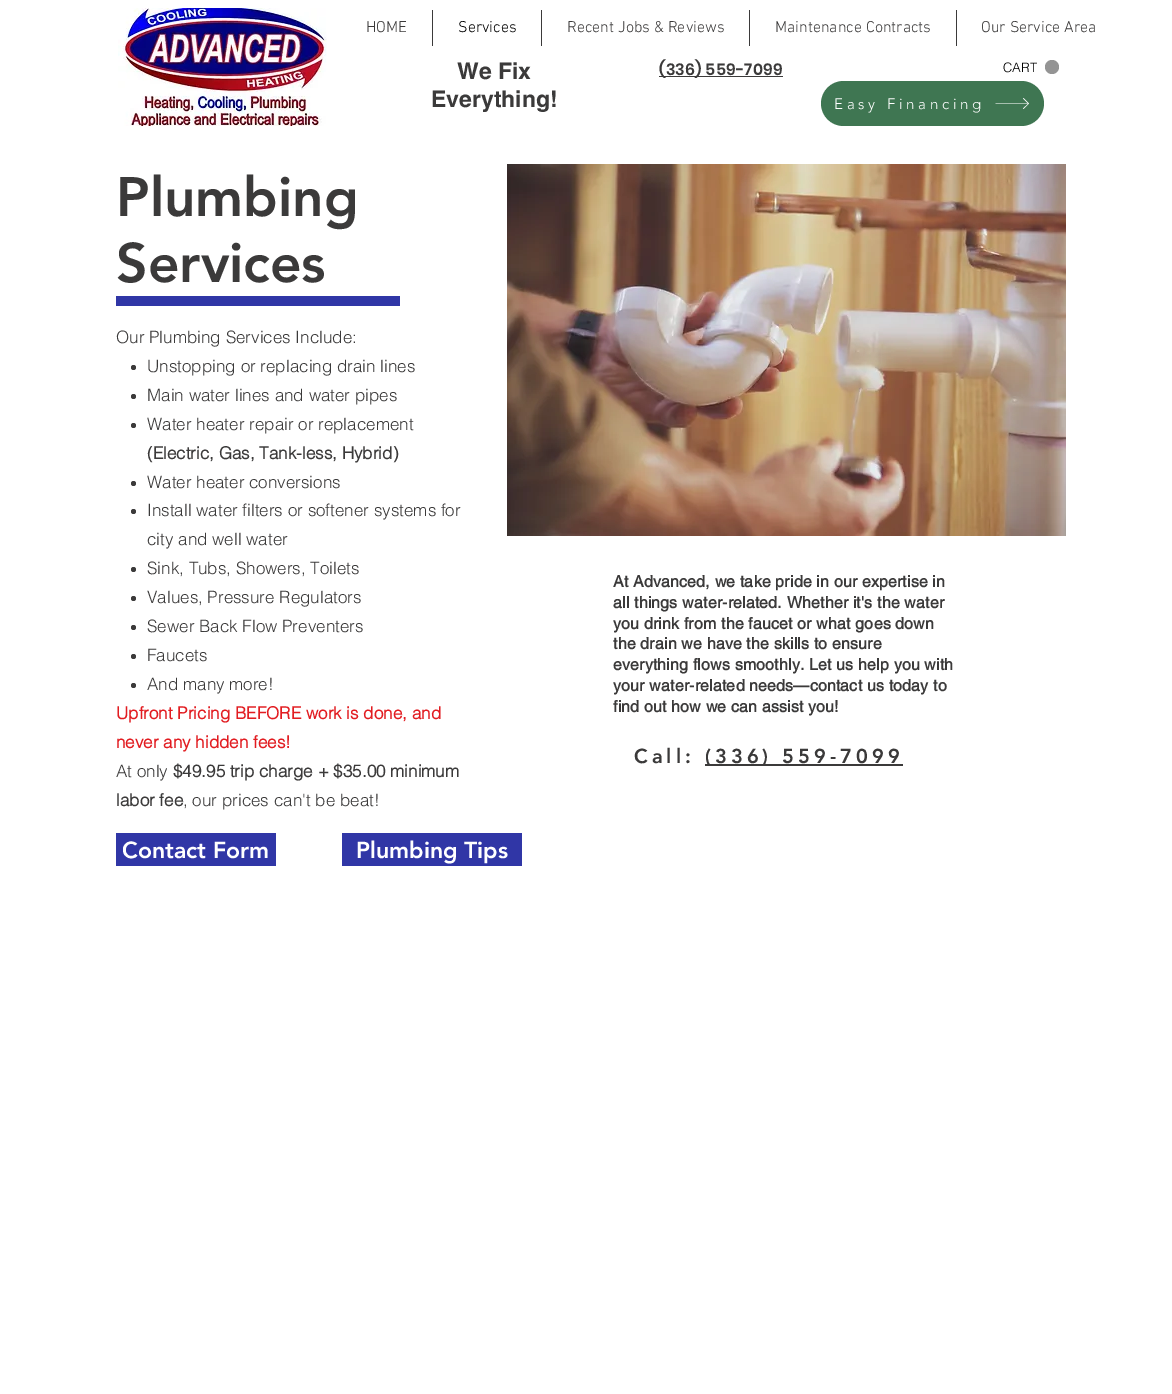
%!PS-Adobe-3.0
%%BoundingBox: 0 0 1172 1394
%%LanguageLevel: 3
%%Pages: 1
%%EndComments
%%BeginProlog
/setink { dup -16 bitshift 255 div exch dup -8 bitshift 255 and 255 div exch 255 and 255 div setrgbcolor } def
/usefont { [ exch dup neg 0 0 3 -1 roll 0 0 ] selectfont } def
/disc { newpath 0 360 arc closepath } def
/rrect { 5 dict begin { /r /h /w /y /x } { exch def } forall
  x r add y moveto x w add y 2 copy h add r arct x w add y h add x 1 index r arct
  x y h add x y r arct x y 2 copy exch w add exch r arct closepath end } def
/drawimage { 5 dict begin { /h /w /y /x /name } { exch def } forall
  gsave x y translate w h scale
  w h 8 [w 0 0 h 0 0] name (r) file false 3 colorimage grestore end } def
%%EndProlog
%%BeginSetup
<< /PageSize [1172 1394] >> setpagedevice
%%EndSetup
%%Page: 1 1
0 1394 translate 1 -1 scale
4 setmiterlimit
16#FFFFFF setink
0 0 1172 1394 rectfill
(img1.raw) 118 8 209 118 drawimage
/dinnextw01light-Light 16 usefont
16#3B3A3A setink
366 32 moveto (HOME) show
432 10 1 36 rectfill
16#000000 setink
458 32 moveto (Services) show
16#3B3A3A setink
541 10 1 36 rectfill
567 32 moveto (Recent Jobs & Reviews) show
749 10 1 36 rectfill
775 32 moveto (Maintenance Contracts) show
956 10 1 36 rectfill
981 32 moveto (Our Service Area) show
/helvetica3-Bold 23 usefont
457 79 moveto (We Fix) show
431 107 moveto (Everything!) show
659 76 124 1 rectfill
/Poppins-SemiBold 16 usefont
659 75 moveto 0.15 0 (\(336\) 559-7099) ashow
16#949494 setink
1052 67 7 disc fill
/helvetica-Light 13 usefont
16#000000 setink
1003 72 moveto (CART) show
16#3F7652 setink
821 81 223 45 22.5 rrect fill
/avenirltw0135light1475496-Light 15 usefont
16#FFFFFF setink
834 109 moveto 3.75 0 (Easy Financing) ashow
1023.5 98 moveto 1023 98.5 lineto 1028 103.5 lineto 995.5 103.5 lineto 995.5 104 lineto 1028 104 lineto 1023 108.5 lineto 1023.5 109 lineto 1029 103.5 lineto closepath fill
/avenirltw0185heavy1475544-Black 55 usefont
16#3B3A3A setink
116 216 moveto (Plumbing) show
116 282 moveto (Services) show
(img2.raw) 507 164 559 372 drawimage
16#3036A6 setink
116 296 284 10 rectfill
/helvetica-Light 17 usefont
16#3B3A3A setink
116 343 moveto (Our Plumbing Services Include:) show
133.5 367.5 2.5 disc fill
147 372 moveto (Unstopping or replacing drain lines) show
133.5 396.5 2.5 disc fill
147 401 moveto (Main water lines and water pipes) show
133.5 425.5 2.5 disc fill
147 430 moveto (Water heater repair or replacement) show
/helvetica-Bold 17 usefont
147 459 moveto (\(Electric, Gas, Tank-less, Hybrid\)) show
133.5 483.5 2.5 disc fill
/helvetica-Light 17 usefont
147 488 moveto (Water heater conversions) show
133.5 511.5 2.5 disc fill
147 516 moveto (Install water filters or softener systems for) show
147 545 moveto (city and well water) show
133.5 569.5 2.5 disc fill
147 574 moveto (Sink, Tubs, Showers, Toilets) show
133.5 598.5 2.5 disc fill
147 603 moveto (Values, Pressure Regulators) show
133.5 627.5 2.5 disc fill
147 632 moveto (Sewer Back Flow Preventers) show
133.5 656.5 2.5 disc fill
147 661 moveto (Faucets) show
133.5 685.5 2.5 disc fill
147 690 moveto (And many more!) show
/helvetica-Bold 17 usefont
16#E21C21 setink
116 719 moveto (Upfront Pricing BEFORE work is done, and) show
116 748 moveto (never any hidden fees!) show
/helvetica-Light 17 usefont
16#3B3A3A setink
116 777 moveto (At only) show
/helvetica-Bold 17 usefont
173 777 moveto ($49.95 trip charge + $35.00 minimum) show
116 806 moveto (labor fee) show
/helvetica-Light 17 usefont
183 806 moveto (, our prices can't be beat!) show
/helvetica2-Bold 16 usefont
613 587 moveto 0.15 0 (At Advanced, we take pride in our expertise in) ashow
613 608 moveto 0.15 0 (all things water-related. Whether it's the water) ashow
613 629 moveto 0.15 0 (you drink from the faucet or what goes down) ashow
613 649 moveto 0.15 0 (the drain we have the skills to ensure) ashow
613 670 moveto 0.15 0 (everything flows smoothly. Let us help you with) ashow
613 691 moveto 0.15 0 (your water-related needs—contact us today to) ashow
613 712 moveto 0.15 0 (find out how we can assist you!) ashow
/avenirltw0185heavy1475544-Black 20 usefont
634 763 moveto 4 0 (Call:) ashow
705 764 198 2 rectfill
705 763 moveto 4 0 (\(336\) 559-7099) ashow
16#3036A6 setink
116 833 160 33 rectfill
/avenirltw0185heavy1475544-Black 23 usefont
16#FFFFFF setink
122 858 moveto (Contact Form) show
16#3036A6 setink
342 833 180 33 rectfill
16#FFFFFF setink
356 858 moveto (Plumbing Tips) show
showpage
%%EOF
